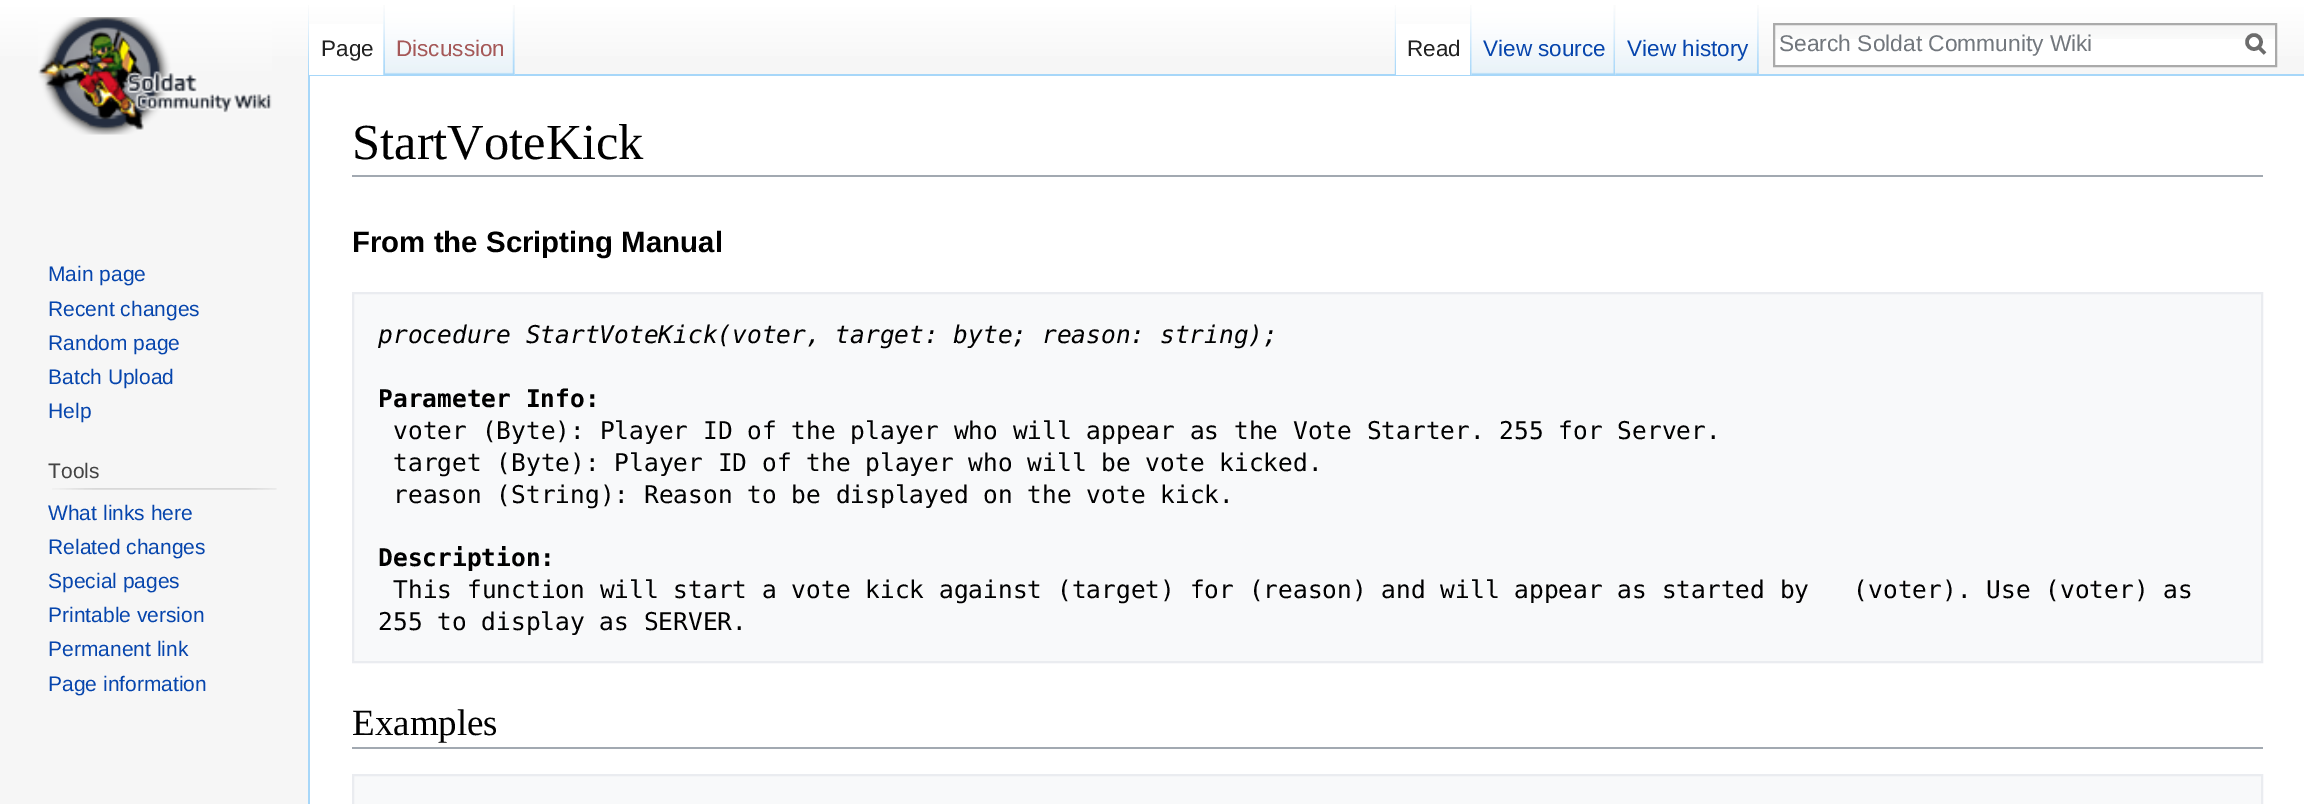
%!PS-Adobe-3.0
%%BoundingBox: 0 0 2304 804
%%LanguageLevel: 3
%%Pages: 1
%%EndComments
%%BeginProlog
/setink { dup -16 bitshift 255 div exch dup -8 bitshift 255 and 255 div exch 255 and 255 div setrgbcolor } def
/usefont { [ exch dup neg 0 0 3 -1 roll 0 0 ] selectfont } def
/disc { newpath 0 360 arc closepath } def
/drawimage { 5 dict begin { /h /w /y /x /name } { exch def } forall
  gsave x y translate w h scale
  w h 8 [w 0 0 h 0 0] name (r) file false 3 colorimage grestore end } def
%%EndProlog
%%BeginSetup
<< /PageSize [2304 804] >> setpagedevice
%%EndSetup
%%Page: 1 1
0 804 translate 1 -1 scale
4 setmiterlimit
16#F6F6F6 setink
0 0 2304 804 rectfill
gsave 0 0 moveto 2304 0 lineto 2304 56 lineto 0 56 lineto closepath clip newpath
<< /ShadingType 2 /ColorSpace /DeviceRGB /Coords [1152 -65 1152 75] /Extend [true true] /Function << /FunctionType 3 /Domain [0 1] /Functions [<< /FunctionType 2 /Domain [0 1] /C0 [1 1 1] /C1 [1 1 1] /N 1 >> << /FunctionType 2 /Domain [0 1] /C0 [1 1 1] /C1 [0.965 0.965 0.965] /N 1 >>] /Bounds [0.5] /Encode [0 1 0 1] >> >> shfill grestore
(img1.raw) 308 5 1 69 drawimage
(img2.raw) 514 5 1 69 drawimage
[
    [308 74 1996 2 16#A7D7F9]
    [308 74 2 730 16#A7D7F9]
    [309 24 75 51 16#FFFFFF]
] { aload pop setink rectfill } forall
(img3.raw) 383 5 2 70 drawimage
/LiberationSans-Regular 22.5 usefont
16#222222 setink
321 56 moveto (Page) show
(img4.raw) 385 5 130 70 drawimage
(img5.raw) 512 5 3 70 drawimage
16#A55858 setink
396 56 moveto (Discussion) show
(img6.raw) 1394 5 2 69 drawimage
(img7.raw) 1758 5 1 69 drawimage
16#FFFFFF setink
1396 24 76 51 rectfill
(img8.raw) 1470 5 2 70 drawimage
16#222222 setink
1407 56 moveto (Read) show
(img9.raw) 1471 5 145 70 drawimage
(img10.raw) 1613 5 3 69 drawimage
16#0645AD setink
1483 56 moveto (View source) show
(img11.raw) 1615 5 144 70 drawimage
(img12.raw) 1757 5 2 70 drawimage
1627 56 moveto (View history) show
16#FFFFFF setink
1775 39 500 26 rectfill
(img13.raw) 1775 25 500 14 drawimage
16#AAAAAA setink
2 setlinewidth
1774 24 502 42 rectstroke
/LiberationSans-Regular 22.75 usefont
16#72777D setink
1779 51 moveto (Search Soldat Community Wiki) show
16#6C6C6C setink
3.5 setlinewidth
2265 53.5 moveto 2258 46.5 lineto stroke
2254 42 7 disc stroke
(img14.raw) 38 17 234 118 drawimage
/LiberationSans-Regular 21 usefont
16#0645AD setink
[
    [(Main page) 48 281]
    [(Recent changes) 48 316]
    [(Random page) 48 350]
    [(Batch Upload) 48 384]
    [(Help) 48 418]
] { aload pop moveto show } forall
16#444444 setink
48 478 moveto (Tools) show
(img15.raw) 52 488 225 2 drawimage
16#0645AD setink
[
    [(What links here) 48 520]
    [(Related changes) 48 554]
    [(Special pages) 48 588]
    [(Printable version) 48 622]
    [(Permanent link) 48 656]
    [(Page information) 48 691]
] { aload pop moveto show } forall
16#FFFFFF setink
310 76 1994 728 rectfill
16#A2A9B1 setink
352 175 1911 2 rectfill
/LiberationSerif-Regular 50.5 usefont
16#000000 setink
352 159 moveto (StartVoteKick) show
/LiberationSans-Bold 29.4 usefont
352 252 moveto (From the Scripting Manual) show
16#F8F9FA setink
353 293 moveto 2262 293 lineto 2262 662 lineto 353 662 lineto closepath gsave fill grestore
16#EAECF0 setink
2 setlinewidth
stroke
/DejaVuSansMono-Italic 24.5 usefont
16#000000 setink
378 343 moveto (procedure StartVoteKick\(voter, target: byte; reason: string\);) show
/DejaVuSansMono-Bold 24.5 usefont
378 407 moveto (Parameter Info:) show
/DejaVuSansMono-Regular 24.5 usefont
[
    [(voter \(Byte\): Player ID of the player who will appear as the Vote Starter. 255 for Server.) 393 439]
    [(target \(Byte\): Player ID of the player who will be vote kicked.) 393 471]
    [(reason \(String\): Reason to be displayed on the vote kick.) 393 503]
] { aload pop moveto show } forall
/DejaVuSansMono-Bold 24.5 usefont
378 566 moveto (Description:) show
/DejaVuSansMono-Regular 24.5 usefont
393 598 moveto (This function will start a vote kick against \(target\) for \(reason\) and will appear as started by   \(voter\). Use \(voter\) as) show
378 630 moveto (255 to display as SERVER.) show
16#A2A9B1 setink
352 747 1911 2 rectfill
/LiberationSerif-Regular 37 usefont
16#000000 setink
352 735 moveto (Examples) show
16#F8F9FA setink
353 775 moveto 2262 775 lineto 2262 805 lineto 353 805 lineto closepath gsave fill grestore
16#EAECF0 setink
stroke
showpage
%%EOF
